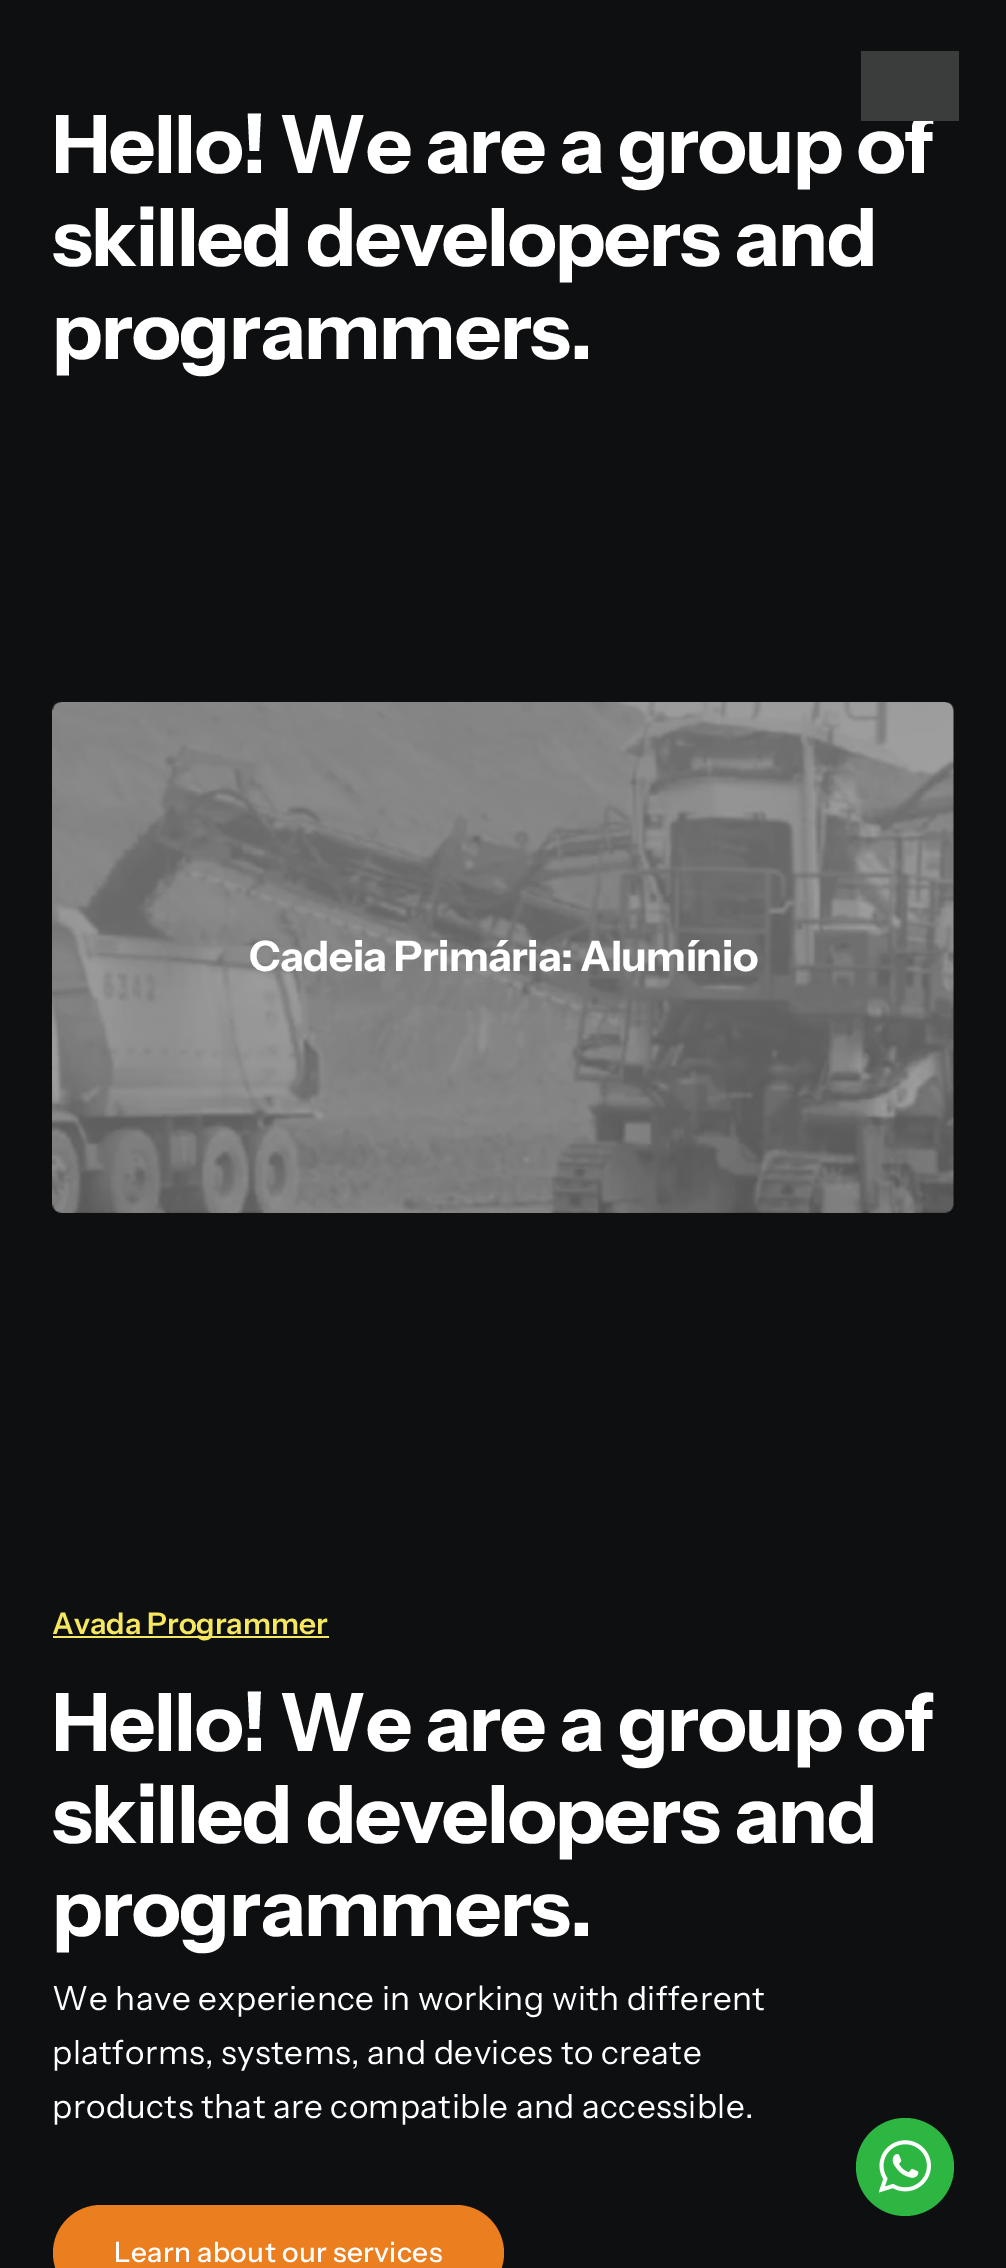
%!PS-Adobe-3.0
%%BoundingBox: 0 0 1006 2268
%%LanguageLevel: 3
%%Pages: 1
%%EndComments
%%BeginProlog
/setink { dup -16 bitshift 255 div exch dup -8 bitshift 255 and 255 div exch 255 and 255 div setrgbcolor } def
/usefont { [ exch dup neg 0 0 3 -1 roll 0 0 ] selectfont } def
/disc { newpath 0 360 arc closepath } def
/rrect { 5 dict begin { /r /h /w /y /x } { exch def } forall
  x r add y moveto x w add y 2 copy h add r arct x w add y h add x 1 index r arct
  x y h add x y r arct x y 2 copy exch w add exch r arct closepath end } def
/drawimage { 5 dict begin { /h /w /y /x /name } { exch def } forall
  gsave x y translate w h scale
  w h 8 [w 0 0 h 0 0] name (r) file false 3 colorimage grestore end } def
%%EndProlog
%%BeginSetup
<< /PageSize [1006 2268] >> setpagedevice
%%EndSetup
%%Page: 1 1
0 2268 translate 1 -1 scale
4 setmiterlimit
16#0E0F11 setink
0 0 1006 2268 rectfill
/InstrumentSans-Bold 80.5 usefont
16#FFFFFF setink
52 173 moveto -1.25 0 (Hello! We are a group of) ashow
16#3B3C3C setink
861 51 98 70 rectfill
16#FFFFFF setink
52 266 moveto -1.25 0 (skilled developers and) ashow
52 359 moveto -1.25 0 (programmers.) ashow
(img1.raw) 52 702 902 511 drawimage
/InstrumentSans-Bold 42 usefont
249 971 moveto -0.6 0 (Cadeia Primária: Alumínio) ashow
16#F6E760 setink
53 1636 276 2 rectfill
/InstrumentSans-SemiBold 29.75 usefont
52 1634 moveto (Avada Programmer) show
/InstrumentSans-Bold 80.5 usefont
16#FFFFFF setink
52 1751 moveto -1.25 0 (Hello! We are a group of) ashow
52 1843 moveto -1.25 0 (skilled developers and) ashow
52 1936 moveto -1.25 0 (programmers.) ashow
/InstrumentSans-Regular 33.25 usefont
52 2010 moveto 0.5 0 (We have experience in working with different) ashow
52 2064 moveto 0.5 0 (platforms, systems, and devices to create) ashow
52 2118 moveto 0.5 0 (products that are compatible and accessible.) ashow
16#EB7E1F setink
53 2205 451 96 48 rrect fill
/InstrumentSans-Medium 28 usefont
16#FFFFFF setink
114 2262 moveto 0.4 0 (Learn about our services) ashow
16#2DB742 setink
905 2167 49 disc fill
(img2.raw) 879 2140 52 53 drawimage
showpage
%%EOF
